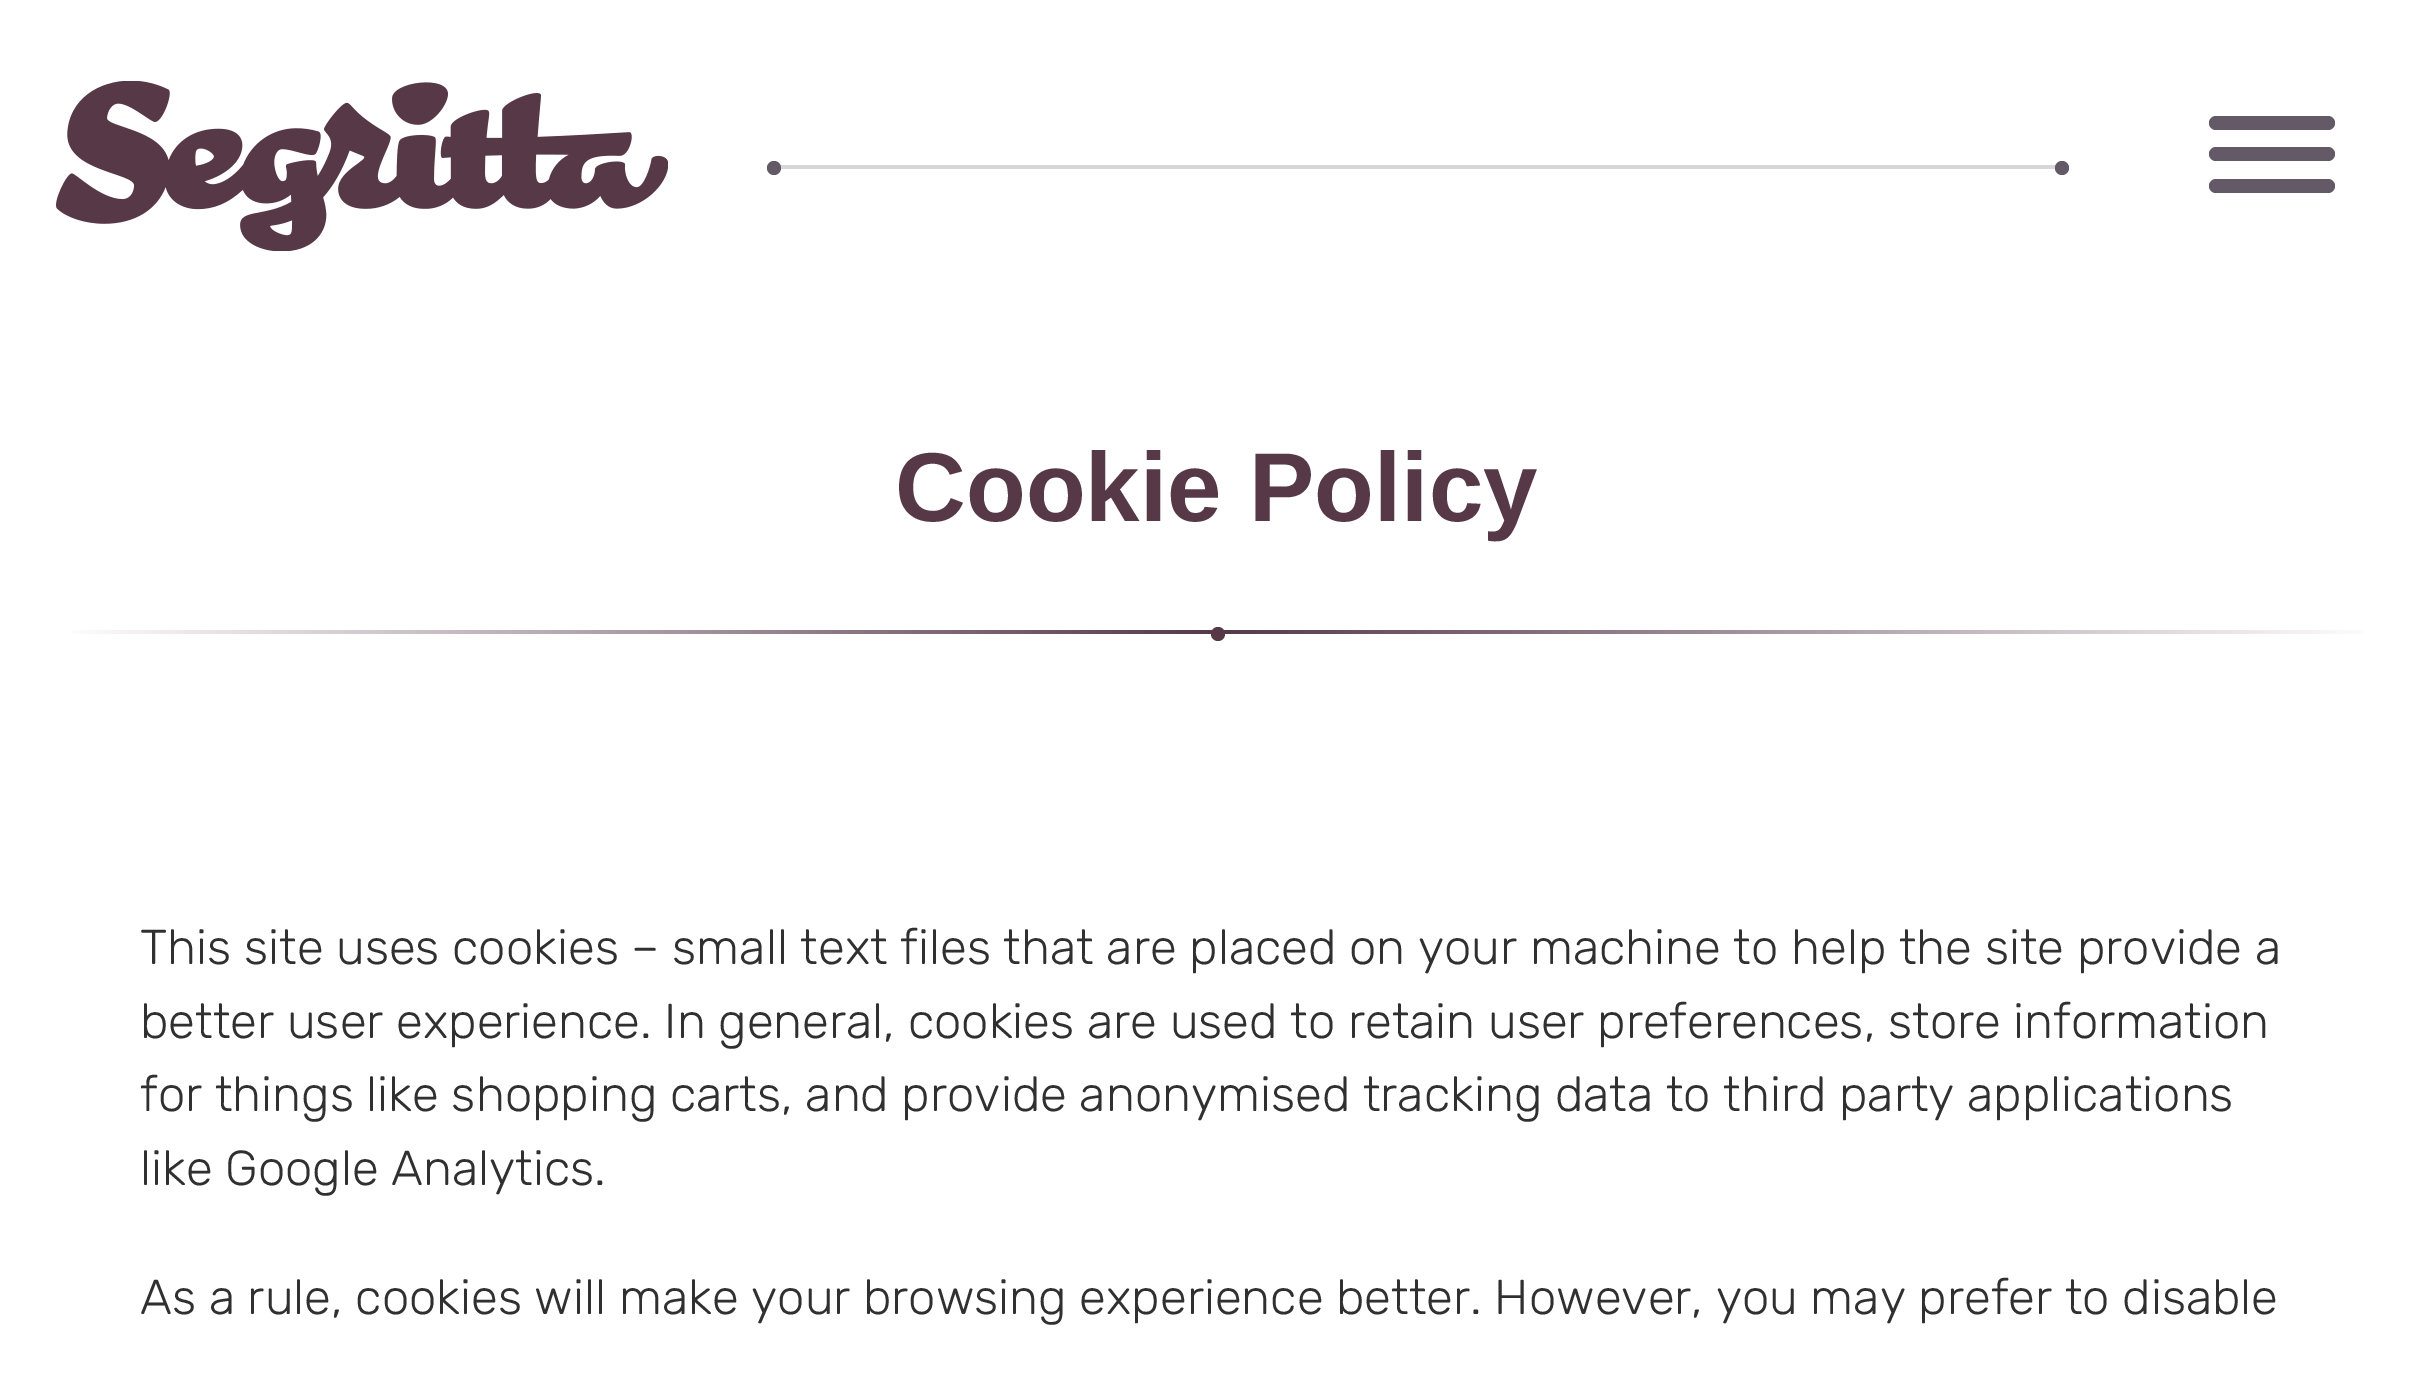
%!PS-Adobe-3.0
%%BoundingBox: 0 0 2431 1375
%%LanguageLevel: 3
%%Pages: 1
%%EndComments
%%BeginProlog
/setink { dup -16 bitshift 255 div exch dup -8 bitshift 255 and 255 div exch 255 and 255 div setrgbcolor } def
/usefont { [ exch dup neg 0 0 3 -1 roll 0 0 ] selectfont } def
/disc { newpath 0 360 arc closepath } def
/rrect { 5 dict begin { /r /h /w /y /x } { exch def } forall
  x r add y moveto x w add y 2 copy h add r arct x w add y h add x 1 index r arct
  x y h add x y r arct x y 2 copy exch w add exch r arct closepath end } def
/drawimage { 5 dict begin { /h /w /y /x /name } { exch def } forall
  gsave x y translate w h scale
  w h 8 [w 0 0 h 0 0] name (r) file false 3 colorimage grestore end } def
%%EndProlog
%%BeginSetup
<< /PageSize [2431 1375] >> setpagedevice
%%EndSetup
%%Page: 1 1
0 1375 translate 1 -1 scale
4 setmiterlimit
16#FFFFFF setink
0 0 2431 1375 rectfill
(img1.raw) 56 81 612 170 drawimage
16#D8D6D9 setink
767 165 1302 4 rectfill
16#645966 setink
774 168 7 disc fill
2062 168 7 disc fill
2209 179 126 14 7 rrect fill
2209 116 126 14 7 rrect fill
2209 147 126 14 7 rrect fill
/LiberationSans-Bold 98 usefont
16#573847 setink
895 521 moveto (Cookie Policy) show
gsave 73 630 moveto 2363 630 lineto 2363 634 lineto 73 634 lineto closepath clip newpath
<< /ShadingType 2 /ColorSpace /DeviceRGB /Coords [2378 632 58 632] /Extend [true true] /Function << /FunctionType 3 /Domain [0 1] /Functions [<< /FunctionType 2 /Domain [0 1] /C0 [1 1 1] /C1 [0.341 0.22 0.278] /N 1 >> << /FunctionType 2 /Domain [0 1] /C0 [0.341 0.22 0.278] /C1 [1 1 1] /N 1 >>] /Bounds [0.5] /Encode [0 1 0 1] >> >> shfill grestore
1218 634 7 disc fill
/Rubik-Light 49 usefont
16#303030 setink
[
    [(This site uses cookies – small text files that are placed on your machine to help the site provide a) 140 964]
    [(better user experience. In general, cookies are used to retain user preferences, store information) 140 1038]
    [(for things like shopping carts, and provide anonymised tracking data to third party applications) 140 1111]
    [(like Google Analytics.) 140 1185]
    [(As a rule, cookies will make your browsing experience better. However, you may prefer to disable) 140 1314]
] { aload pop moveto show } forall
showpage
%%EOF
